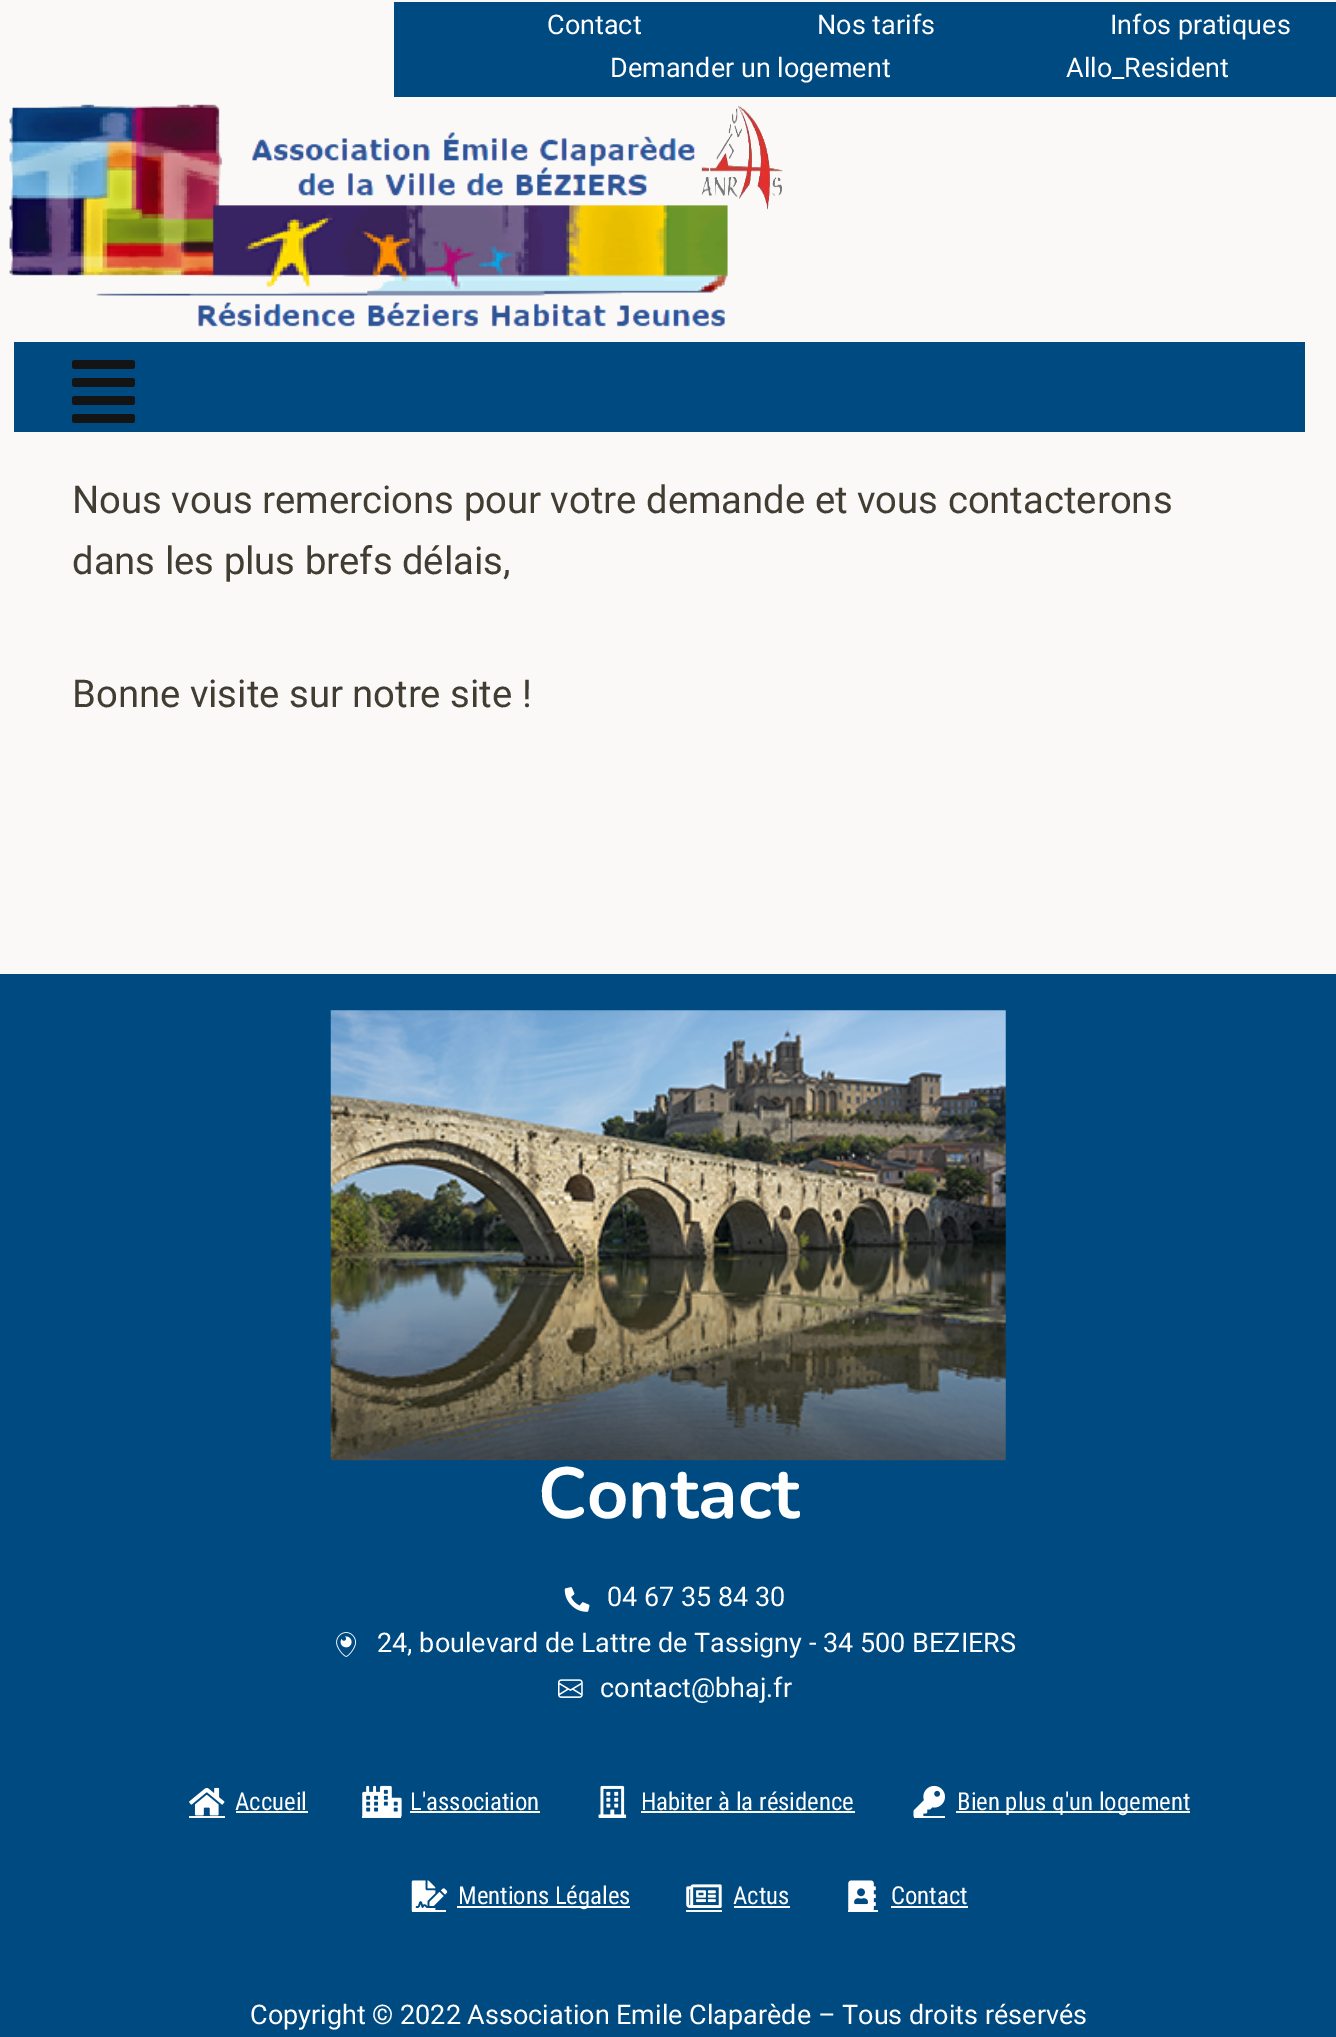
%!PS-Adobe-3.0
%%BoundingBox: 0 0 1336 2037
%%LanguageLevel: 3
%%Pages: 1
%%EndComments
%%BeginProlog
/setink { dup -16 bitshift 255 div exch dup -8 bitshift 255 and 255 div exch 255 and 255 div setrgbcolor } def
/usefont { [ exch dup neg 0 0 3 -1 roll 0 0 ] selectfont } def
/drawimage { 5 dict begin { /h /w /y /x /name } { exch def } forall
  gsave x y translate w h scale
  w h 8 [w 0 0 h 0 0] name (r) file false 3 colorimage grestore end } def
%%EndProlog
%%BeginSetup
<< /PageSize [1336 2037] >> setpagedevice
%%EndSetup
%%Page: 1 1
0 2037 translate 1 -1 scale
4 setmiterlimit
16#FAF9F7 setink
0 0 1336 2037 rectfill
16#004A82 setink
394 2 942 95 rectfill
/Roboto-Regular 27 usefont
16#FFFFFF setink
[
    [(Contact) 547 34]
    [(Nos tarifs) 817 34]
    [(Infos pratiques) 1110 34]
    [(Demander un logement) 610 77]
    [(Allo_Resident) 1066 77]
] { aload pop moveto show } forall
(img1.raw) 9 104 719 223 drawimage
(img2.raw) 701 105 82 105 drawimage
16#004A82 setink
14 342 1291 90 rectfill
(img3.raw) 72 360 63 63 drawimage
/Roboto-Regular 38.25 usefont
16#423D33 setink
[
    [(Nous vous remercions pour votre demande et vous contacterons) 72 513]
    [(dans les plus brefs délais,) 72 574]
    [(Bonne visite sur notre site !) 72 707]
] { aload pop moveto show } forall
16#004A82 setink
0 974 1336 1063 rectfill
(img4.raw) 330 1010 676 451 drawimage
/Nunito-ExtraLight 72 usefont
16#FFFFFF setink
538 1518 moveto (Contact) show
(img5.raw) 564 1587 26 25 drawimage
/Roboto-Regular 27 usefont
607 1606 moveto (04 67 35 84 30) show
(img6.raw) 336 1632 20 25 drawimage
377 1652 moveto (24, boulevard de Lattre de Tassigny - 34 500 BEZIERS) show
(img7.raw) 558 1679 25 19 drawimage
600 1697 moveto (contact@bhaj.fr) show
(img8.raw) 189 1787 36 29 drawimage
16#FAF9F7 setink
189 1816 36 2 rectfill
/RobotoCondensed-Regular 24.75 usefont
16#FFFFFF setink
235 1810 moveto (Accueil) show
16#FAF9F7 setink
236 1811 72 2 rectfill
362 1816 39 2 rectfill
(img9.raw) 362 1785 40 32 drawimage
16#FFFFFF setink
410 1810 moveto (L'association) show
16#FAF9F7 setink
410 1811 130 2 rectfill
599 1817 27 1 rectfill
(img10.raw) 598 1785 29 33 drawimage
16#FFFFFF setink
641 1810 moveto (Habiter à la résidence) show
16#FAF9F7 setink
641 1811 214 2 rectfill
914 1816 31 2 rectfill
(img11.raw) 913 1785 32 32 drawimage
956 1811 234 2 rectfill
16#FFFFFF setink
957 1810 moveto (Bien plus q'un logement) show
16#FAF9F7 setink
412 1910 34 2 rectfill
(img12.raw) 411 1880 37 32 drawimage
457 1906 173 2 rectfill
16#FFFFFF setink
458 1904 moveto (Mentions Légales) show
(img13.raw) 686 1884 36 24 drawimage
16#FAF9F7 setink
686 1910 36 2 rectfill
16#FFFFFF setink
733 1904 moveto (Actus) show
16#FAF9F7 setink
734 1906 56 2 rectfill
848 1910 30 2 rectfill
(img14.raw) 848 1880 28 32 drawimage
16#FFFFFF setink
891 1904 moveto (Contact) show
16#FAF9F7 setink
891 1906 77 2 rectfill
/Roboto-Regular 27 usefont
16#FFFFFF setink
250 2024 moveto (Copyright © 2022 Association Emile Claparède – Tous droits réservés) show
showpage
%%EOF
